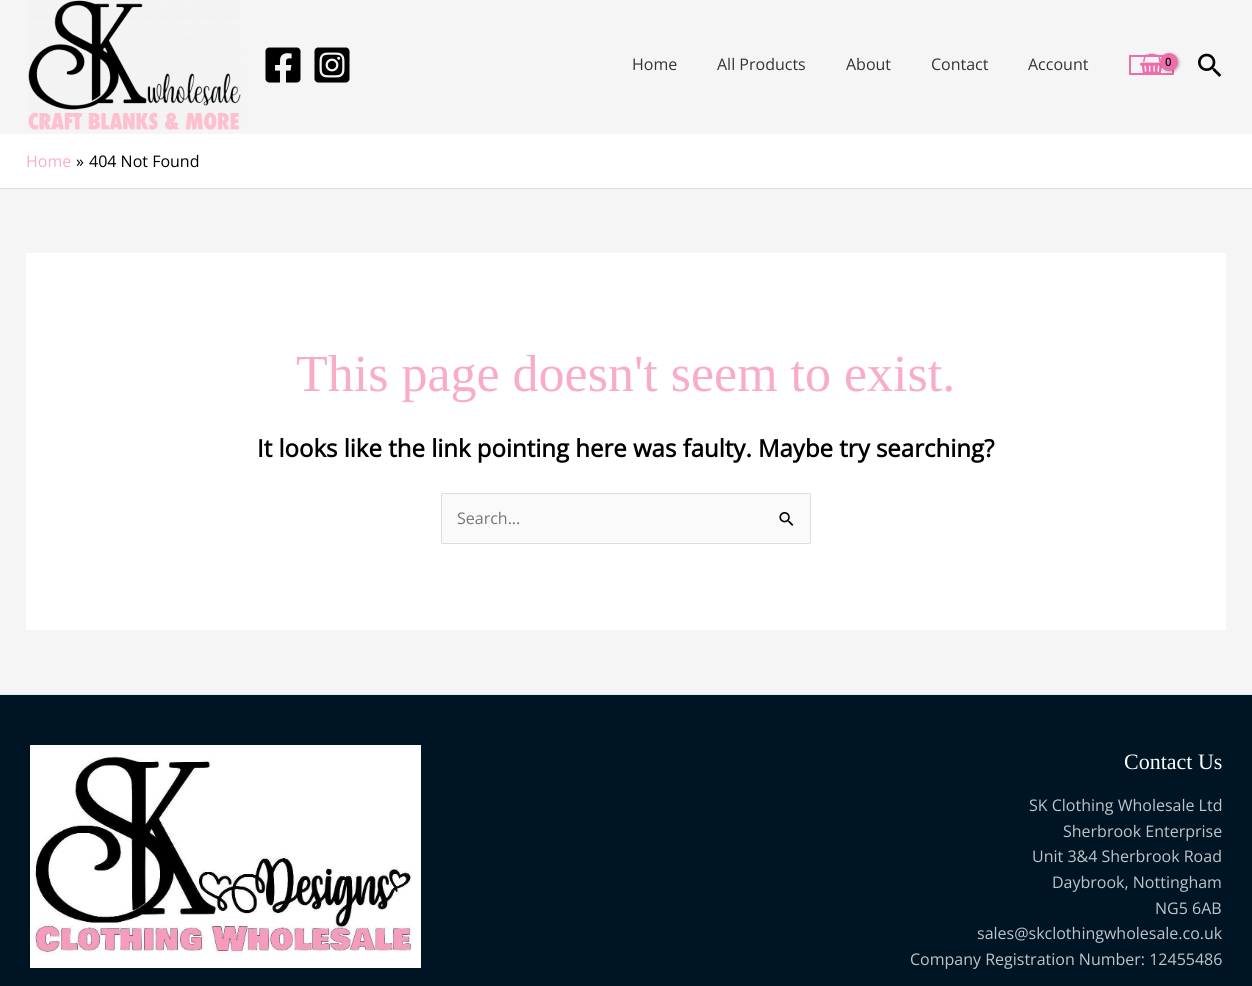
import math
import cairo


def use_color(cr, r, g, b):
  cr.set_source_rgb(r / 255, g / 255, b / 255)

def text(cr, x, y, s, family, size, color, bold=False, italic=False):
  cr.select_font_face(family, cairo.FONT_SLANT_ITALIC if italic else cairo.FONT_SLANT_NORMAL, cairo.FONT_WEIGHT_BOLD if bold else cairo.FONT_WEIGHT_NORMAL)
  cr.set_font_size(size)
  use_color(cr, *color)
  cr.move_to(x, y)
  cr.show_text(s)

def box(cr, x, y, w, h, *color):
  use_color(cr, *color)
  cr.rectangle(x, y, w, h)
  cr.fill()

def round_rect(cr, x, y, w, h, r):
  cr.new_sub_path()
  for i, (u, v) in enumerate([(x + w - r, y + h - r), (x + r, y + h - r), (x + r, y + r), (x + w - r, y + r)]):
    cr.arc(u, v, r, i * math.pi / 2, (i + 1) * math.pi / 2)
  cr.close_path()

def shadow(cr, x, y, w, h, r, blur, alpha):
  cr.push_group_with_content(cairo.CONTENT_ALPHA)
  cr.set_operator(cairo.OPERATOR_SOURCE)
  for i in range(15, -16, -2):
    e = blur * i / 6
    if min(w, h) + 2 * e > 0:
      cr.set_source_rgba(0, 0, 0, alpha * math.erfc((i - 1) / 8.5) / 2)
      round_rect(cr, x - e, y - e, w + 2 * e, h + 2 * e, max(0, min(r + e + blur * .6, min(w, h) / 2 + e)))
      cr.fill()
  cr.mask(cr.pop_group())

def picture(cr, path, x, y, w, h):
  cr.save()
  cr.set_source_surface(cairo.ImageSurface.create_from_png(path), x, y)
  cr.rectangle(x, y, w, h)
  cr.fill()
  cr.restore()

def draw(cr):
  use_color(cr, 245, 245, 245)
  cr.paint()
  picture(cr, "img_01.png", 28, 0, 213, 130)
  picture(cr, "img_02.png", 265, 47, 36, 36)
  picture(cr, "img_03.png", 314, 47, 36, 36)
  cr.rectangle(1130, 56, 43, 18)
  use_color(cr, 238, 110, 171)
  cr.stroke()
  picture(cr, "img_04.png", 1140, 53, 22, 20)
  use_color(cr, 0, 0, 0)
  shadow(cr, 1161, 54, 18, 18, 9, 1.5, 0.3)
  use_color(cr, 238, 110, 171)
  cr.arc(1169, 62, 9, 0, 2 * math.pi)
  cr.fill()
  picture(cr, "img_05.png", 1198, 53, 24, 24)
  box(cr, 0, 134, 1252, 54, 255, 255, 255)
  box(cr, 0, 188, 1252, 1, 221, 221, 221)
  box(cr, 26, 253, 1200, 377, 255, 255, 255)
  use_color(cr, 250, 250, 250)
  round_rect(cr, 441.5, 493.5, 369, 50, 1.5)
  cr.fill_preserve()
  use_color(cr, 221, 221, 221)
  cr.set_line_width(1)
  cr.stroke()
  picture(cr, "img_06.png", 779, 512, 15, 14)
  box(cr, 0, 695, 1252, 291, 0, 21, 36)
  box(cr, 0, 694, 1252, 1, 230, 230, 230)
  picture(cr, "img_07.png", 30, 745, 391, 223)
  text(cr, 632, 70, "Home", "Open Sans", 16, (51, 51, 51))
  text(cr, 717, 70, "All Products", "Open Sans", 16, (51, 51, 51))
  text(cr, 846, 70, "About", "Open Sans", 16, (51, 51, 51))
  text(cr, 931, 70, "Contact", "Open Sans", 16, (51, 51, 51))
  text(cr, 1028, 70, "Account", "Open Sans", 16, (51, 51, 51))
  text(cr, 1165, 66, "0", "Open Sans", 11, (0, 0, 0), bold=True)
  text(cr, 26, 167, "Home", "Open Sans", 16, (249, 172, 201))
  text(cr, 76, 167, "»", "Open Sans", 16, (0, 0, 0))
  text(cr, 89, 167, "404 Not Found", "Open Sans", 16, (0, 0, 0))
  text(cr, 296, 391, "This page doesn't seem to exist.", "Liberation Serif", 52, (249, 172, 201))
  text(cr, 257, 457, "It looks like the link pointing here was faulty. Maybe try searching?", "Open Sans", 24, (0, 0, 0), bold=True)
  text(cr, 457, 524, "Search...", "Open Sans", 16, (117, 117, 117))
  text(cr, 1124, 769, "Contact Us", "Liberation Serif", 22, (255, 255, 255))
  text(cr, 1029, 811, "SK Clothing Wholesale Ltd", "Open Sans", 16, (191, 197, 200))
  text(cr, 1063, 837, "Sherbrook Enterprise", "Open Sans", 16, (191, 197, 200))
  text(cr, 1032, 862, "Unit 3&4 Sherbrook Road", "Open Sans", 16, (191, 197, 200))
  text(cr, 1052, 888, "Daybrook, Nottingham", "Open Sans", 16, (191, 197, 200))
  text(cr, 1155, 914, "NG5 6AB", "Open Sans", 16, (191, 197, 200))
  text(cr, 977, 939, "sales@skclothingwholesale.co.uk", "Open Sans", 16, (191, 197, 200))
  text(cr, 910, 965, "Company Registration Number: 12455486", "Open Sans", 16, (191, 197, 200))


surface = cairo.ImageSurface(cairo.FORMAT_RGB24, 1252, 986)
cr = cairo.Context(surface)
options = cairo.FontOptions()
options.set_hint_metrics(cairo.HINT_METRICS_OFF)
options.set_hint_style(cairo.HINT_STYLE_NONE)
cr.set_font_options(options)
cr.set_miter_limit(4)
draw(cr)
surface.write_to_png("out.png")
